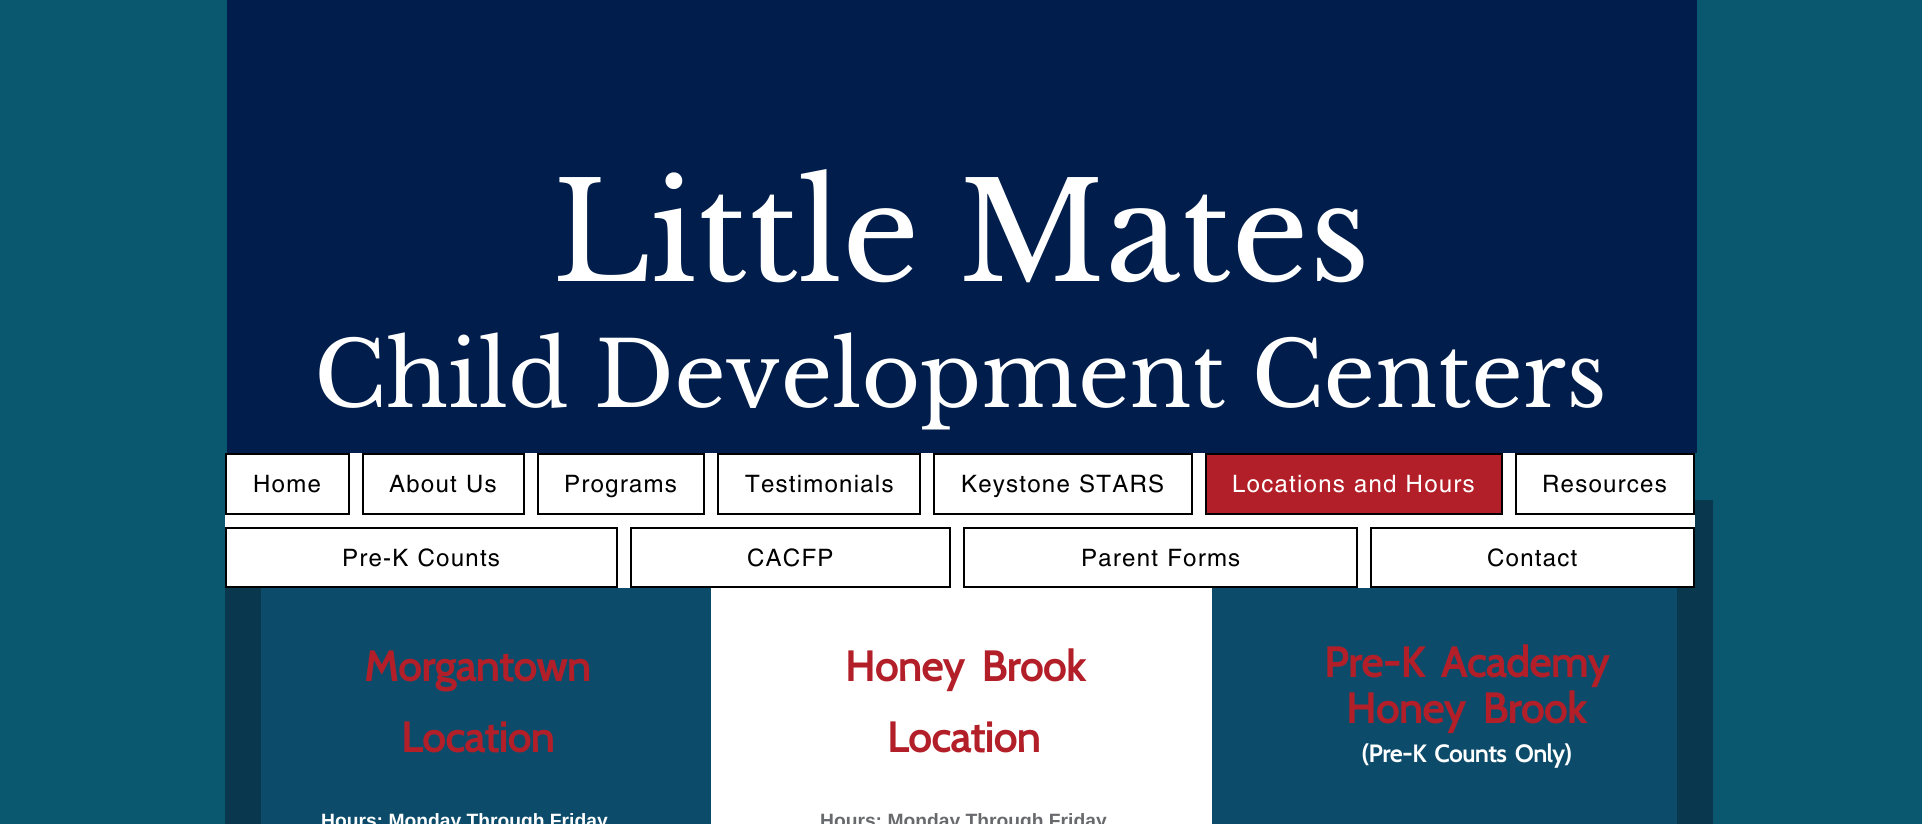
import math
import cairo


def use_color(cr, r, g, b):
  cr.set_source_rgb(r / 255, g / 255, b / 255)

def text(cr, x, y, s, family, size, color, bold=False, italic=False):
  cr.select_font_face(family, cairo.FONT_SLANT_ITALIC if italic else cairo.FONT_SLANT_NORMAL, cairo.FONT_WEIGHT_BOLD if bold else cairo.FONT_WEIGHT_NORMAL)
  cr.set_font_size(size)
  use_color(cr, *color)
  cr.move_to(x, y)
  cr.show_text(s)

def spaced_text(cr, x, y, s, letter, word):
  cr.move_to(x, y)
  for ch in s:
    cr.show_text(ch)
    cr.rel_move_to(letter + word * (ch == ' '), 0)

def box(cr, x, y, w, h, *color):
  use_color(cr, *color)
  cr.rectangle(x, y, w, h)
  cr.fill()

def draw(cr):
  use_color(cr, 9, 88, 112)
  cr.paint()
  box(cr, 227, 0, 1470, 453, 0, 29, 75)
  box(cr, 261, 588, 1416, 236, 12, 75, 106)
  cr.rectangle(243, 518, 1452, 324)
  use_color(cr, 9, 56, 78)
  cr.set_line_width(36)
  cr.stroke()
  box(cr, 225, 453, 1470, 135, 255, 255, 255)
  cr.rectangle(226, 454, 123, 60)
  use_color(cr, 0, 0, 0)
  cr.set_line_width(2)
  cr.stroke()
  cr.rectangle(363, 454, 161, 60)
  cr.stroke()
  cr.rectangle(538, 454, 166, 60)
  cr.stroke()
  cr.rectangle(718, 454, 202, 60)
  cr.stroke()
  cr.rectangle(934, 454, 258, 60)
  cr.stroke()
  use_color(cr, 179, 31, 40)
  cr.rectangle(1206, 454, 296, 60)
  cr.fill_preserve()
  use_color(cr, 0, 0, 0)
  cr.stroke()
  cr.rectangle(1516, 454, 178, 60)
  cr.stroke()
  cr.rectangle(226, 528, 391, 59)
  cr.stroke()
  cr.rectangle(631, 528, 319, 59)
  cr.stroke()
  cr.rectangle(964, 528, 393, 59)
  cr.stroke()
  cr.rectangle(1371, 528, 323, 59)
  cr.stroke()
  box(cr, 711, 588, 501, 236, 255, 255, 255)
  text(cr, 552, 281, "Little Mates", "Libre Baskerville", 135, (255, 255, 255))
  text(cr, 314, 407, "Child Development Centers", "Libre Baskerville", 90, (255, 255, 255))
  cr.select_font_face("helvetica")
  cr.set_font_size(24)
  use_color(cr, 0, 0, 0)
  spaced_text(cr, 253, 492, "Home", 1.25, 0)
  spaced_text(cr, 389, 492, "About Us", 1.25, 0)
  spaced_text(cr, 564, 492, "Programs", 1.25, 0)
  spaced_text(cr, 745, 492, "Testimonials", 1.25, 0)
  spaced_text(cr, 961, 492, "Keystone STARS", 1.25, 0)
  use_color(cr, 255, 255, 255)
  spaced_text(cr, 1232, 492, "Locations and Hours", 1.25, 0)
  use_color(cr, 0, 0, 0)
  spaced_text(cr, 1542, 492, "Resources", 1.25, 0)
  spaced_text(cr, 342, 566, "Pre-K Counts", 1.25, 0)
  spaced_text(cr, 747, 566, "CACFP", 1.25, 0)
  spaced_text(cr, 1081, 566, "Parent Forms", 1.25, 0)
  spaced_text(cr, 1487, 566, "Contact", 1.25, 0)
  text(cr, 364, 681, "Morgantown", "Cabin", 42, (179, 31, 40), bold=True)
  text(cr, 401, 752, "Location", "Cabin", 42, (179, 31, 40), bold=True)
  text(cr, 321, 827, "Hours: Monday Through Friday", "Liberation Sans", 19.25, (255, 255, 255), bold=True)
  cr.select_font_face("Cabin", cairo.FONT_SLANT_NORMAL, cairo.FONT_WEIGHT_BOLD)
  cr.set_font_size(42)
  use_color(cr, 179, 31, 40)
  spaced_text(cr, 845, 681, "Honey Brook", 0, 8)
  text(cr, 887, 752, "Location", "Cabin", 42, (179, 31, 40), bold=True)
  text(cr, 820, 827, "Hours: Monday Through Friday", "Liberation Sans", 19.25, (103, 105, 108), bold=True)
  cr.select_font_face("Cabin", cairo.FONT_SLANT_NORMAL, cairo.FONT_WEIGHT_BOLD)
  cr.set_font_size(42)
  use_color(cr, 179, 31, 40)
  spaced_text(cr, 1324, 677, "Pre-K Academy", 0, 7)
  spaced_text(cr, 1346, 723, "Honey Brook", 0, 8)
  cr.set_font_size(24)
  use_color(cr, 255, 255, 255)
  spaced_text(cr, 1361, 762, "(Pre-K Counts Only)", 0, 3)


surface = cairo.ImageSurface(cairo.FORMAT_RGB24, 1922, 824)
cr = cairo.Context(surface)
options = cairo.FontOptions()
options.set_hint_metrics(cairo.HINT_METRICS_OFF)
options.set_hint_style(cairo.HINT_STYLE_NONE)
cr.set_font_options(options)
cr.set_miter_limit(4)
draw(cr)
surface.write_to_png("out.png")
